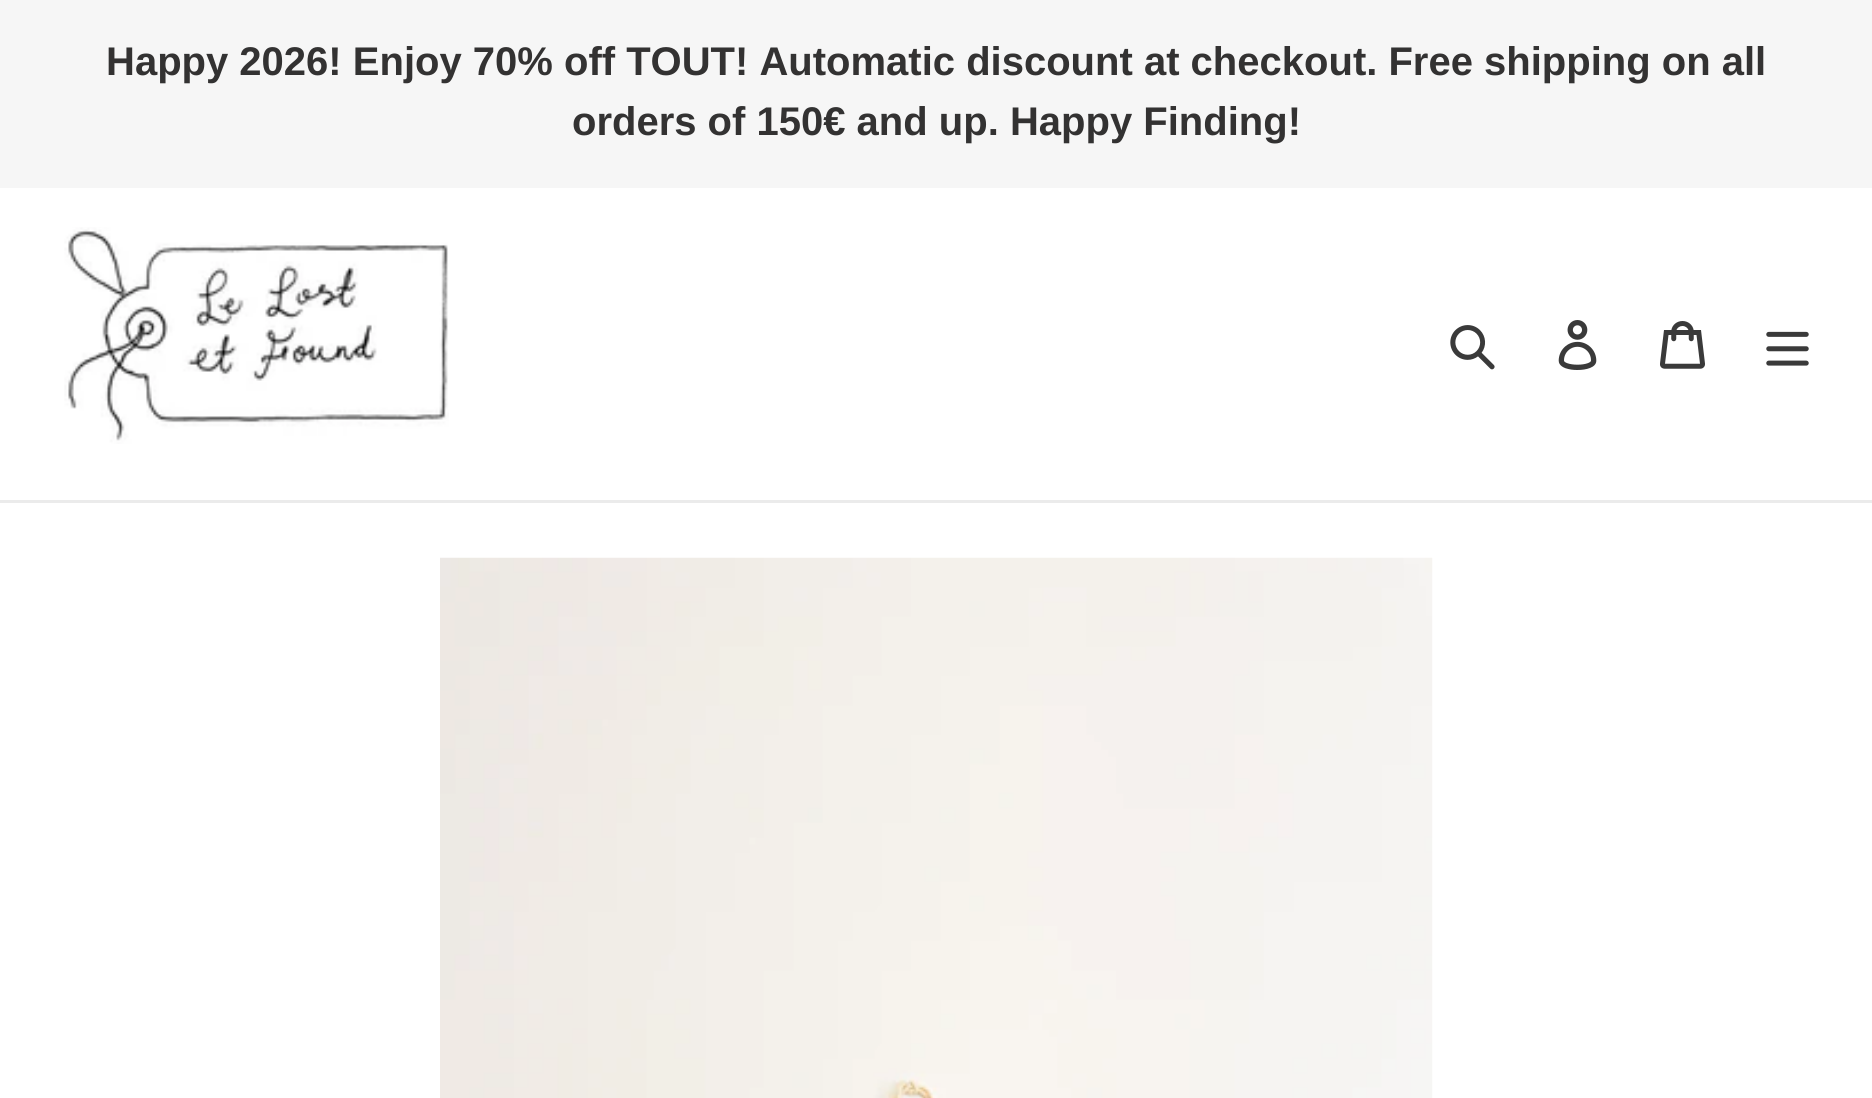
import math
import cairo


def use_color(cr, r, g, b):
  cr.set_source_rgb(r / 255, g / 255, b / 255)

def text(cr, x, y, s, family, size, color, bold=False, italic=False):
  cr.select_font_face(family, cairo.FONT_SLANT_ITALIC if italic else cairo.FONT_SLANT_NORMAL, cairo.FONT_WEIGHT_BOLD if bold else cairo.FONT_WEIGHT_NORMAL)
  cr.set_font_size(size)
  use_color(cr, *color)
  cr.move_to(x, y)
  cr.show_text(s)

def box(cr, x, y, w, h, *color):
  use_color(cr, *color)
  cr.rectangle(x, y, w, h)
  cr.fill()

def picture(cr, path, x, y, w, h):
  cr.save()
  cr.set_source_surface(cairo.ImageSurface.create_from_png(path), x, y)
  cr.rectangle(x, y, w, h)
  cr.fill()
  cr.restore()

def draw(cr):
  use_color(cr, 255, 255, 255)
  cr.paint()
  box(cr, 0, 0, 1872, 188, 246, 246, 246)
  box(cr, 0, 500, 1872, 3, 235, 235, 235)
  picture(cr, "img_01.png", 64, 227, 385, 217)
  picture(cr, "img_02.png", 1450, 325, 45, 45)
  picture(cr, "img_03.png", 1558, 320, 39, 50)
  picture(cr, "img_04.png", 1660, 321, 45, 48)
  picture(cr, "img_05.png", 1766, 331, 43, 35)
  picture(cr, "img_06.png", 440, 557, 993, 541)
  text(cr, 106, 75, "Happy 2026! Enjoy 70% off TOUT! Automatic discount at checkout. Free shipping on all", "Liberation Sans", 40, (51, 50, 50), bold=True)
  text(cr, 572, 135, "orders of 150€ and up. Happy Finding!", "Liberation Sans", 40, (51, 50, 50), bold=True)


surface = cairo.ImageSurface(cairo.FORMAT_RGB24, 1872, 1098)
cr = cairo.Context(surface)
options = cairo.FontOptions()
options.set_hint_metrics(cairo.HINT_METRICS_OFF)
options.set_hint_style(cairo.HINT_STYLE_NONE)
cr.set_font_options(options)
cr.set_miter_limit(4)
draw(cr)
surface.write_to_png("out.png")
